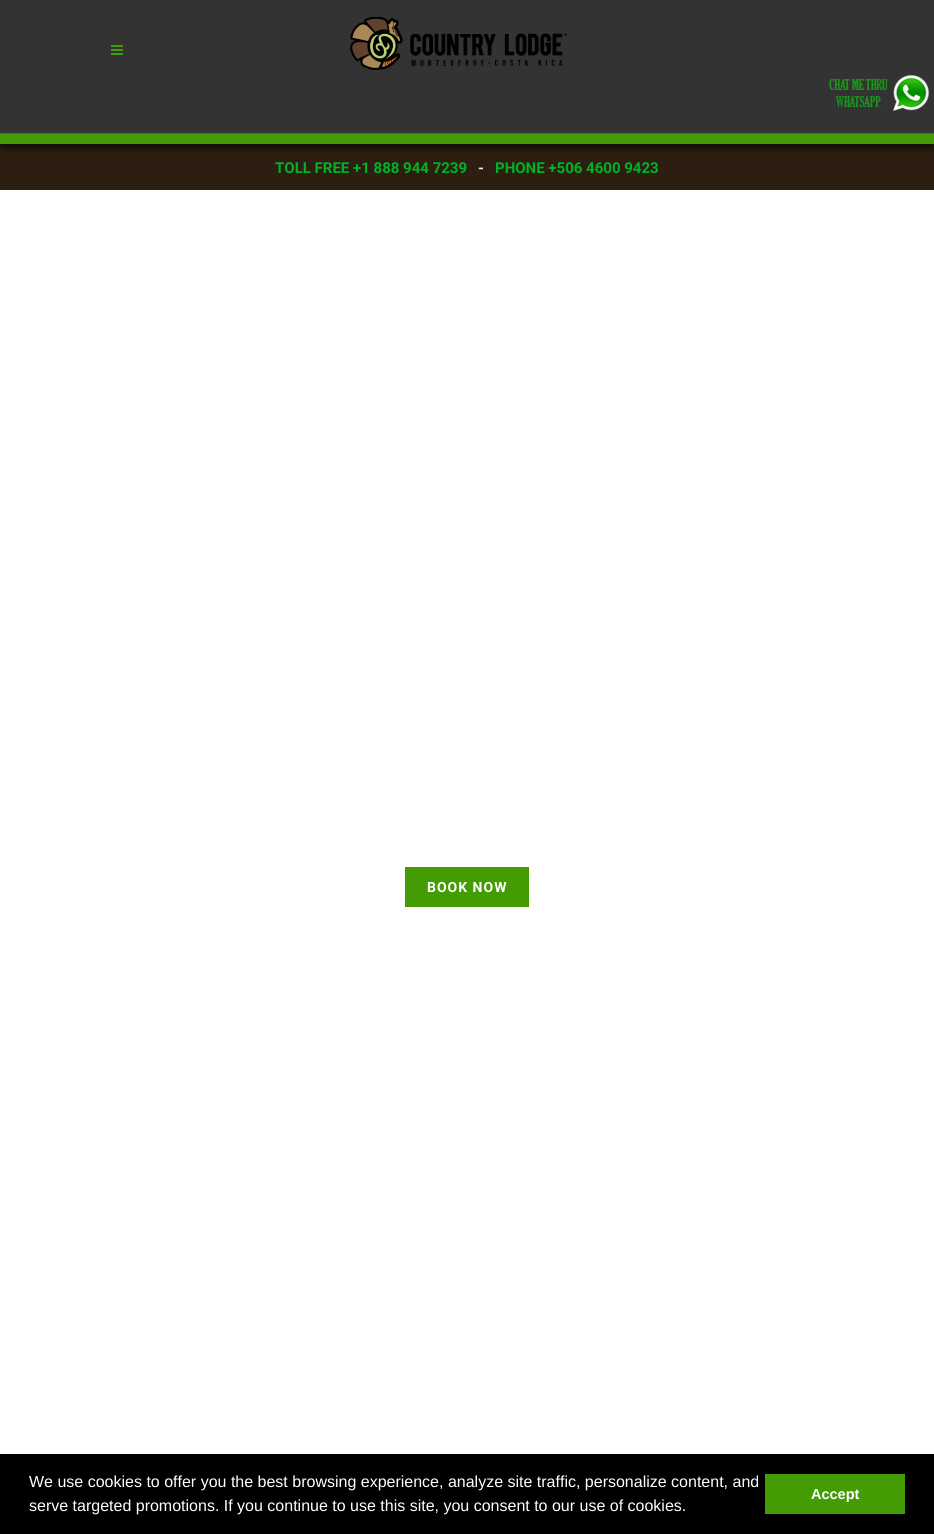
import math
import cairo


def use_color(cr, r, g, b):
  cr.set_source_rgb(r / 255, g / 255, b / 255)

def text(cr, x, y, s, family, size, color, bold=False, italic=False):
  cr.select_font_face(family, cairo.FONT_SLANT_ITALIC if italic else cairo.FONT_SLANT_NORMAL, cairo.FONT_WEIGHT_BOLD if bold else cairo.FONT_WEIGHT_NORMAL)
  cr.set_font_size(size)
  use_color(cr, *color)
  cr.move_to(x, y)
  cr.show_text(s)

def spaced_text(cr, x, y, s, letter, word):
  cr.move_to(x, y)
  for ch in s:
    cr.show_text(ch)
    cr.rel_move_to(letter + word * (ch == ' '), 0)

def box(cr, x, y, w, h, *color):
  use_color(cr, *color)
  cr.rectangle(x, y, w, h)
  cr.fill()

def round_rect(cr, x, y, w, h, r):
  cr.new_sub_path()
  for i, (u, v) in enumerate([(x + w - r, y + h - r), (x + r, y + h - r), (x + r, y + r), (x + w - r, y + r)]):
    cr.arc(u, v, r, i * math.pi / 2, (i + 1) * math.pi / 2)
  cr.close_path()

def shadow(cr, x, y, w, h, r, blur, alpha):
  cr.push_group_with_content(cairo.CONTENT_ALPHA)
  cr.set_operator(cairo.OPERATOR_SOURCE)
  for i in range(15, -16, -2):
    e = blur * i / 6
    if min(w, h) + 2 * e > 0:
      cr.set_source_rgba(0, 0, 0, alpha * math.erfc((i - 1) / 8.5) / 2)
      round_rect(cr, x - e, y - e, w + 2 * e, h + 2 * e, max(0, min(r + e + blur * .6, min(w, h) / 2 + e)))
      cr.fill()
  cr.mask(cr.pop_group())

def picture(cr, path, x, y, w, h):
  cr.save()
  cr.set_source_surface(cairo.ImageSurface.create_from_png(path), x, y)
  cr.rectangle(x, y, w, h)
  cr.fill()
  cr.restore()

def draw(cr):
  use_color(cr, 255, 255, 255)
  cr.paint()
  box(cr, 0, 0, 934, 133, 51, 51, 51)
  box(cr, 0, 144, 934, 46, 44, 31, 17)
  use_color(cr, 0, 0, 0)
  shadow(cr, 0, 139, 934, 10, 0, 2.5, 0.5)
  box(cr, 0, 133, 934, 1, 92, 92, 92)
  picture(cr, "img_01.png", 111, 45, 12, 10)
  picture(cr, "img_02.png", 350, 16, 218, 55)
  picture(cr, "img_03.png", 829, 75, 100, 36)
  box(cr, 0, 134, 934, 10, 68, 156, 4)
  box(cr, 405, 867, 124, 40, 68, 156, 4)
  box(cr, 0, 1454, 934, 80, 0, 0, 0)
  box(cr, 765, 1474, 140, 40, 68, 156, 4)
  text(cr, 275, 173, "TOLL FREE +1 888 944 7239", "Roboto", 15, (0, 179, 37), bold=True)
  text(cr, 478, 173, "-", "Roboto", 15, (238, 238, 238), bold=True)
  text(cr, 495, 173, "PHONE +506 4600 9423", "Roboto", 15, (0, 179, 37), bold=True)
  cr.set_font_size(14)
  use_color(cr, 255, 255, 255)
  spaced_text(cr, 427, 892, "BOOK NOW", 1, 0)
  text(cr, 29, 1487, "We use cookies to offer you the best browsing experience, analyze site traffic, personalize content, and", "Liberation Sans", 16, (255, 255, 255))
  text(cr, 29, 1511, "serve targeted promotions. If you continue to use this site, you consent to our use of cookies.", "Liberation Sans", 16, (255, 255, 255))
  text(cr, 811, 1499, "Accept", "Liberation Sans", 14.5, (255, 255, 255), bold=True)


surface = cairo.ImageSurface(cairo.FORMAT_RGB24, 934, 1534)
cr = cairo.Context(surface)
options = cairo.FontOptions()
options.set_hint_metrics(cairo.HINT_METRICS_OFF)
options.set_hint_style(cairo.HINT_STYLE_NONE)
cr.set_font_options(options)
cr.set_miter_limit(4)
draw(cr)
surface.write_to_png("out.png")
